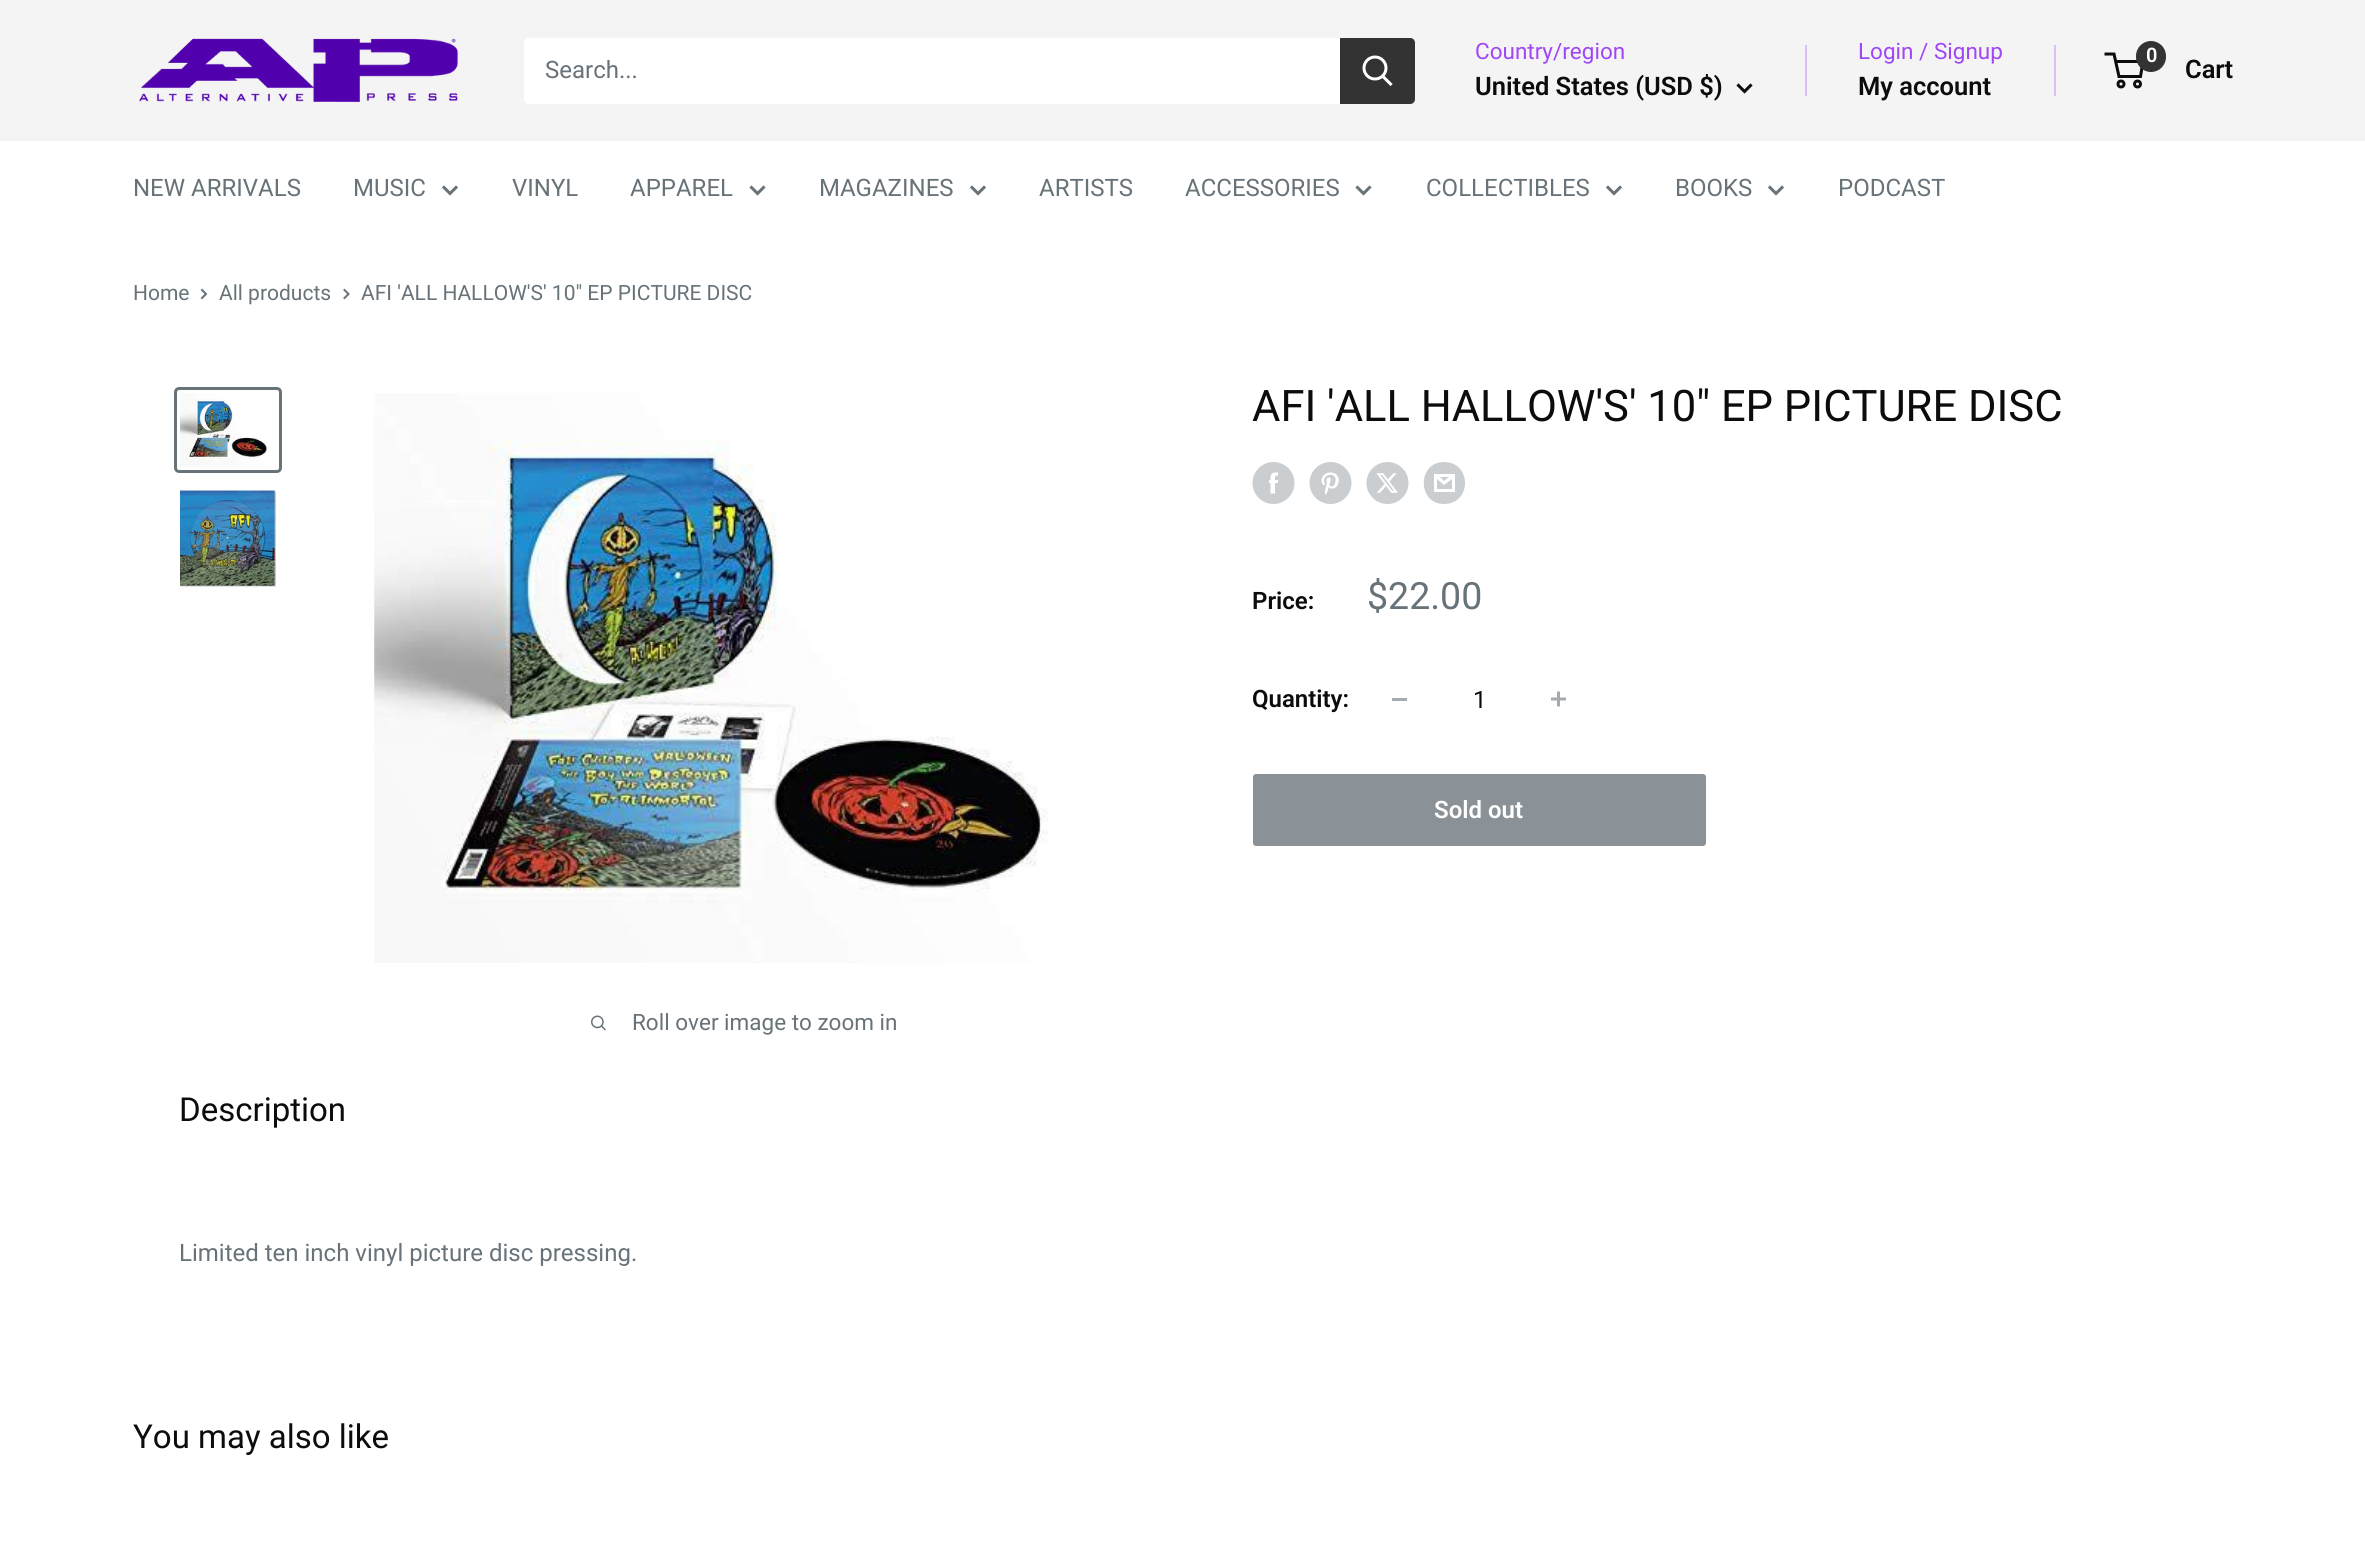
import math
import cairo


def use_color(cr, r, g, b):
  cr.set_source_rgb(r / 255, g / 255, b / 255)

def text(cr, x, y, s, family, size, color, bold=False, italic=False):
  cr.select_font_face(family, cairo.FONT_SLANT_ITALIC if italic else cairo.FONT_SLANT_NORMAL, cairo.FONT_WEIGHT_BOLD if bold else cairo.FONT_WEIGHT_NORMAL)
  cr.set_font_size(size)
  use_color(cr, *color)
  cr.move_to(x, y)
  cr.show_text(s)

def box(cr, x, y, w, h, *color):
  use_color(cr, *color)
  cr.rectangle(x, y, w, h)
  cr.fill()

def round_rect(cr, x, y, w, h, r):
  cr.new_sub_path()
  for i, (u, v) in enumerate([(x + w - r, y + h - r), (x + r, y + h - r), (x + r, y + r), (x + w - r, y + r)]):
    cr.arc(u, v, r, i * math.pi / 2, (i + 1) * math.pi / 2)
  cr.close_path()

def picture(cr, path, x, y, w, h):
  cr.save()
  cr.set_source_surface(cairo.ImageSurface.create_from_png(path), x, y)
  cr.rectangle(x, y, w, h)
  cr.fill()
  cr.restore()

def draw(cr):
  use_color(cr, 255, 255, 255)
  cr.paint()
  box(cr, 0, 0, 2365, 141, 244, 244, 244)
  picture(cr, "img_01.png", 139, 38, 320, 64)
  use_color(cr, 255, 255, 255)
  round_rect(cr, 524, 38, 891, 66, 5)
  cr.fill()
  use_color(cr, 51, 51, 51)
  cr.new_path()
  cr.move_to(1340, 38)
  cr.line_to(1410, 38)
  cr.curve_to(1413, 38, 1415, 40, 1415, 43)
  cr.line_to(1415, 99)
  cr.curve_to(1415, 102, 1413, 104, 1410, 104)
  cr.line_to(1340, 104)
  cr.close_path()
  cr.fill()
  cr.new_path()
  cr.move_to(1390.5, 84)
  cr.line_to(1383, 76.5)
  use_color(cr, 255, 255, 255)
  cr.set_line_width(3)
  cr.set_line_cap(cairo.LINE_CAP_SQUARE)
  cr.stroke()
  cr.arc(1375, 68, 11, 0, 2 * math.pi)
  cr.set_line_cap(cairo.LINE_CAP_BUTT)
  cr.stroke()
  cr.new_path()
  cr.move_to(1750.5, 85.5)
  cr.line_to(1744.5, 91.5)
  cr.line_to(1738.5, 85.5)
  use_color(cr, 12, 12, 13)
  cr.set_line_cap(cairo.LINE_CAP_SQUARE)
  cr.stroke()
  box(cr, 1805, 45, 2, 51, 219, 192, 245)
  box(cr, 2054, 45, 2, 51, 219, 192, 245)
  cr.arc(2121, 84, 3, 0, 2 * math.pi)
  use_color(cr, 12, 12, 13)
  cr.set_line_cap(cairo.LINE_CAP_BUTT)
  cr.stroke()
  cr.arc(2137.5, 84, 3, 0, 2 * math.pi)
  cr.stroke()
  cr.new_path()
  cr.move_to(2115.5, 61.5)
  cr.line_to(2143, 61.5)
  cr.line_to(2140.5, 76.5)
  cr.line_to(2119, 76.5)
  cr.line_to(2114, 54)
  cr.line_to(2104.5, 54)
  cr.stroke()
  use_color(cr, 51, 51, 51)
  round_rect(cr, 2136, 41, 30, 31, 15)
  cr.fill()
  cr.new_path()
  cr.move_to(456, 187.5)
  cr.line_to(450, 193.5)
  cr.line_to(444, 187.5)
  use_color(cr, 103, 114, 121)
  cr.set_line_cap(cairo.LINE_CAP_SQUARE)
  cr.stroke()
  cr.new_path()
  cr.move_to(763.5, 187.5)
  cr.line_to(757.5, 193.5)
  cr.line_to(751.5, 187.5)
  cr.stroke()
  cr.new_path()
  cr.move_to(984, 187.5)
  cr.line_to(978, 193.5)
  cr.line_to(972, 187.5)
  cr.stroke()
  cr.new_path()
  cr.move_to(1369.5, 187.5)
  cr.line_to(1363.5, 193.5)
  cr.line_to(1357.5, 187.5)
  cr.stroke()
  cr.new_path()
  cr.move_to(1620, 187.5)
  cr.line_to(1614, 193.5)
  cr.line_to(1608, 187.5)
  cr.stroke()
  cr.new_path()
  cr.move_to(1782, 187.5)
  cr.line_to(1776, 193.5)
  cr.line_to(1770, 187.5)
  cr.stroke()
  cr.new_path()
  cr.move_to(202, 290)
  cr.line_to(206, 294)
  cr.line_to(202, 298)
  cr.set_line_width(2)
  cr.stroke()
  cr.new_path()
  cr.move_to(344.5, 290)
  cr.line_to(348.5, 294)
  cr.line_to(344.5, 298)
  cr.stroke()
  picture(cr, "img_02.png", 1252, 462, 43, 42)
  picture(cr, "img_03.png", 1309, 462, 43, 42)
  picture(cr, "img_04.png", 1366, 462, 43, 42)
  use_color(cr, 202, 206, 208)
  cr.new_path()
  cr.move_to(1444, 504)
  cr.curve_to(1417, 504, 1417, 462, 1444, 462)
  cr.curve_to(1472, 462, 1472, 504, 1444, 504)
  cr.close_path()
  cr.move_to(1440, 477)
  cr.line_to(1449, 477)
  cr.line_to(1444, 481)
  cr.close_path()
  cr.move_to(1452, 479)
  cr.line_to(1452, 489)
  cr.line_to(1437, 489)
  cr.line_to(1437, 479)
  cr.line_to(1444, 485)
  cr.close_path()
  cr.move_to(1455, 474)
  cr.line_to(1434, 474)
  cr.line_to(1434, 492)
  cr.line_to(1455, 492)
  cr.close_path()
  cr.fill()
  box(cr, 1392, 698, 15, 3, 164, 170, 175)
  picture(cr, "img_05.png", 1551, 691, 15, 16)
  use_color(cr, 138, 146, 151)
  round_rect(cr, 1254, 775, 451, 70, 2)
  cr.fill_preserve()
  cr.set_line_cap(cairo.LINE_CAP_BUTT)
  cr.stroke()
  round_rect(cr, 175.5, 388.5, 105, 83, 3.5)
  use_color(cr, 103, 114, 121)
  cr.set_line_width(3)
  cr.stroke()
  picture(cr, "img_06.png", 180, 393, 88, 74)
  picture(cr, "img_07.png", 180, 490, 96, 97)
  picture(cr, "img_08.png", 374, 393, 675, 570)
  picture(cr, "img_09.png", 591, 1015, 15, 16)
  text(cr, 545, 78, "Search...", "Roboto", 24, (103, 114, 121))
  text(cr, 1475, 59, "Country/region", "Roboto", 22.5, (161, 70, 246))
  text(cr, 1475, 95, "United States (USD $)", "Roboto SemiBold", 25.5, (12, 12, 13))
  text(cr, 1858, 59, "Login / Signup", "Roboto", 22.5, (161, 70, 246))
  text(cr, 1858, 95, "My account", "Roboto SemiBold", 25.5, (12, 12, 13))
  text(cr, 2146, 62, "0", "Roboto SemiBold", 20, (255, 255, 255))
  text(cr, 2185, 78, "Cart", "Roboto SemiBold", 25.5, (12, 12, 13))
  text(cr, 133, 196, "NEW ARRIVALS", "Roboto", 24, (103, 114, 121))
  text(cr, 353, 196, "MUSIC", "Roboto", 24, (103, 114, 121))
  text(cr, 512, 196, "VINYL", "Roboto", 24, (103, 114, 121))
  text(cr, 630, 196, "APPAREL", "Roboto", 24, (103, 114, 121))
  text(cr, 819, 196, "MAGAZINES", "Roboto", 24, (103, 114, 121))
  text(cr, 1039, 196, "ARTISTS", "Roboto", 24, (103, 114, 121))
  text(cr, 1185, 196, "ACCESSORIES", "Roboto", 24, (103, 114, 121))
  text(cr, 1426, 196, "COLLECTIBLES", "Roboto", 24, (103, 114, 121))
  text(cr, 1675, 196, "BOOKS", "Roboto", 24, (103, 114, 121))
  text(cr, 1838, 196, "PODCAST", "Roboto", 24, (103, 114, 121))
  text(cr, 133, 300, "Home", "Roboto", 21, (103, 114, 121))
  text(cr, 219, 300, "All products", "Roboto", 21, (103, 114, 121))
  text(cr, 361, 300, "AFI 'ALL HALLOW'S' 10\" EP PICTURE DISC", "Roboto", 21, (103, 114, 121))
  text(cr, 1252, 421, "AFI 'ALL HALLOW'S' 10\" EP PICTURE DISC", "Roboto", 43.5, (12, 12, 13))
  text(cr, 1252, 609, "Price:", "Roboto SemiBold", 24, (12, 12, 13))
  text(cr, 1367, 609, "$22.00", "Roboto", 37.5, (103, 114, 121))
  text(cr, 1252, 707, "Quantity:", "Roboto SemiBold", 24, (12, 12, 13))
  text(cr, 1473, 708, "1", "Roboto", 24, (12, 12, 13))
  text(cr, 1434, 818, "Sold out", "Roboto SemiBold", 24, (255, 255, 255))
  text(cr, 632, 1030, "Roll over image to zoom in", "Roboto", 22.5, (103, 114, 121))
  text(cr, 179, 1121, "Description", "Roboto", 33, (12, 12, 13))
  text(cr, 179, 1261, "Limited ten inch vinyl picture disc pressing.", "Roboto", 24, (103, 114, 121))
  text(cr, 133, 1448, "You may also like", "Roboto", 33, (12, 12, 13))


surface = cairo.ImageSurface(cairo.FORMAT_RGB24, 2365, 1546)
cr = cairo.Context(surface)
options = cairo.FontOptions()
options.set_hint_metrics(cairo.HINT_METRICS_OFF)
options.set_hint_style(cairo.HINT_STYLE_NONE)
cr.set_font_options(options)
cr.set_miter_limit(4)
draw(cr)
surface.write_to_png("out.png")
